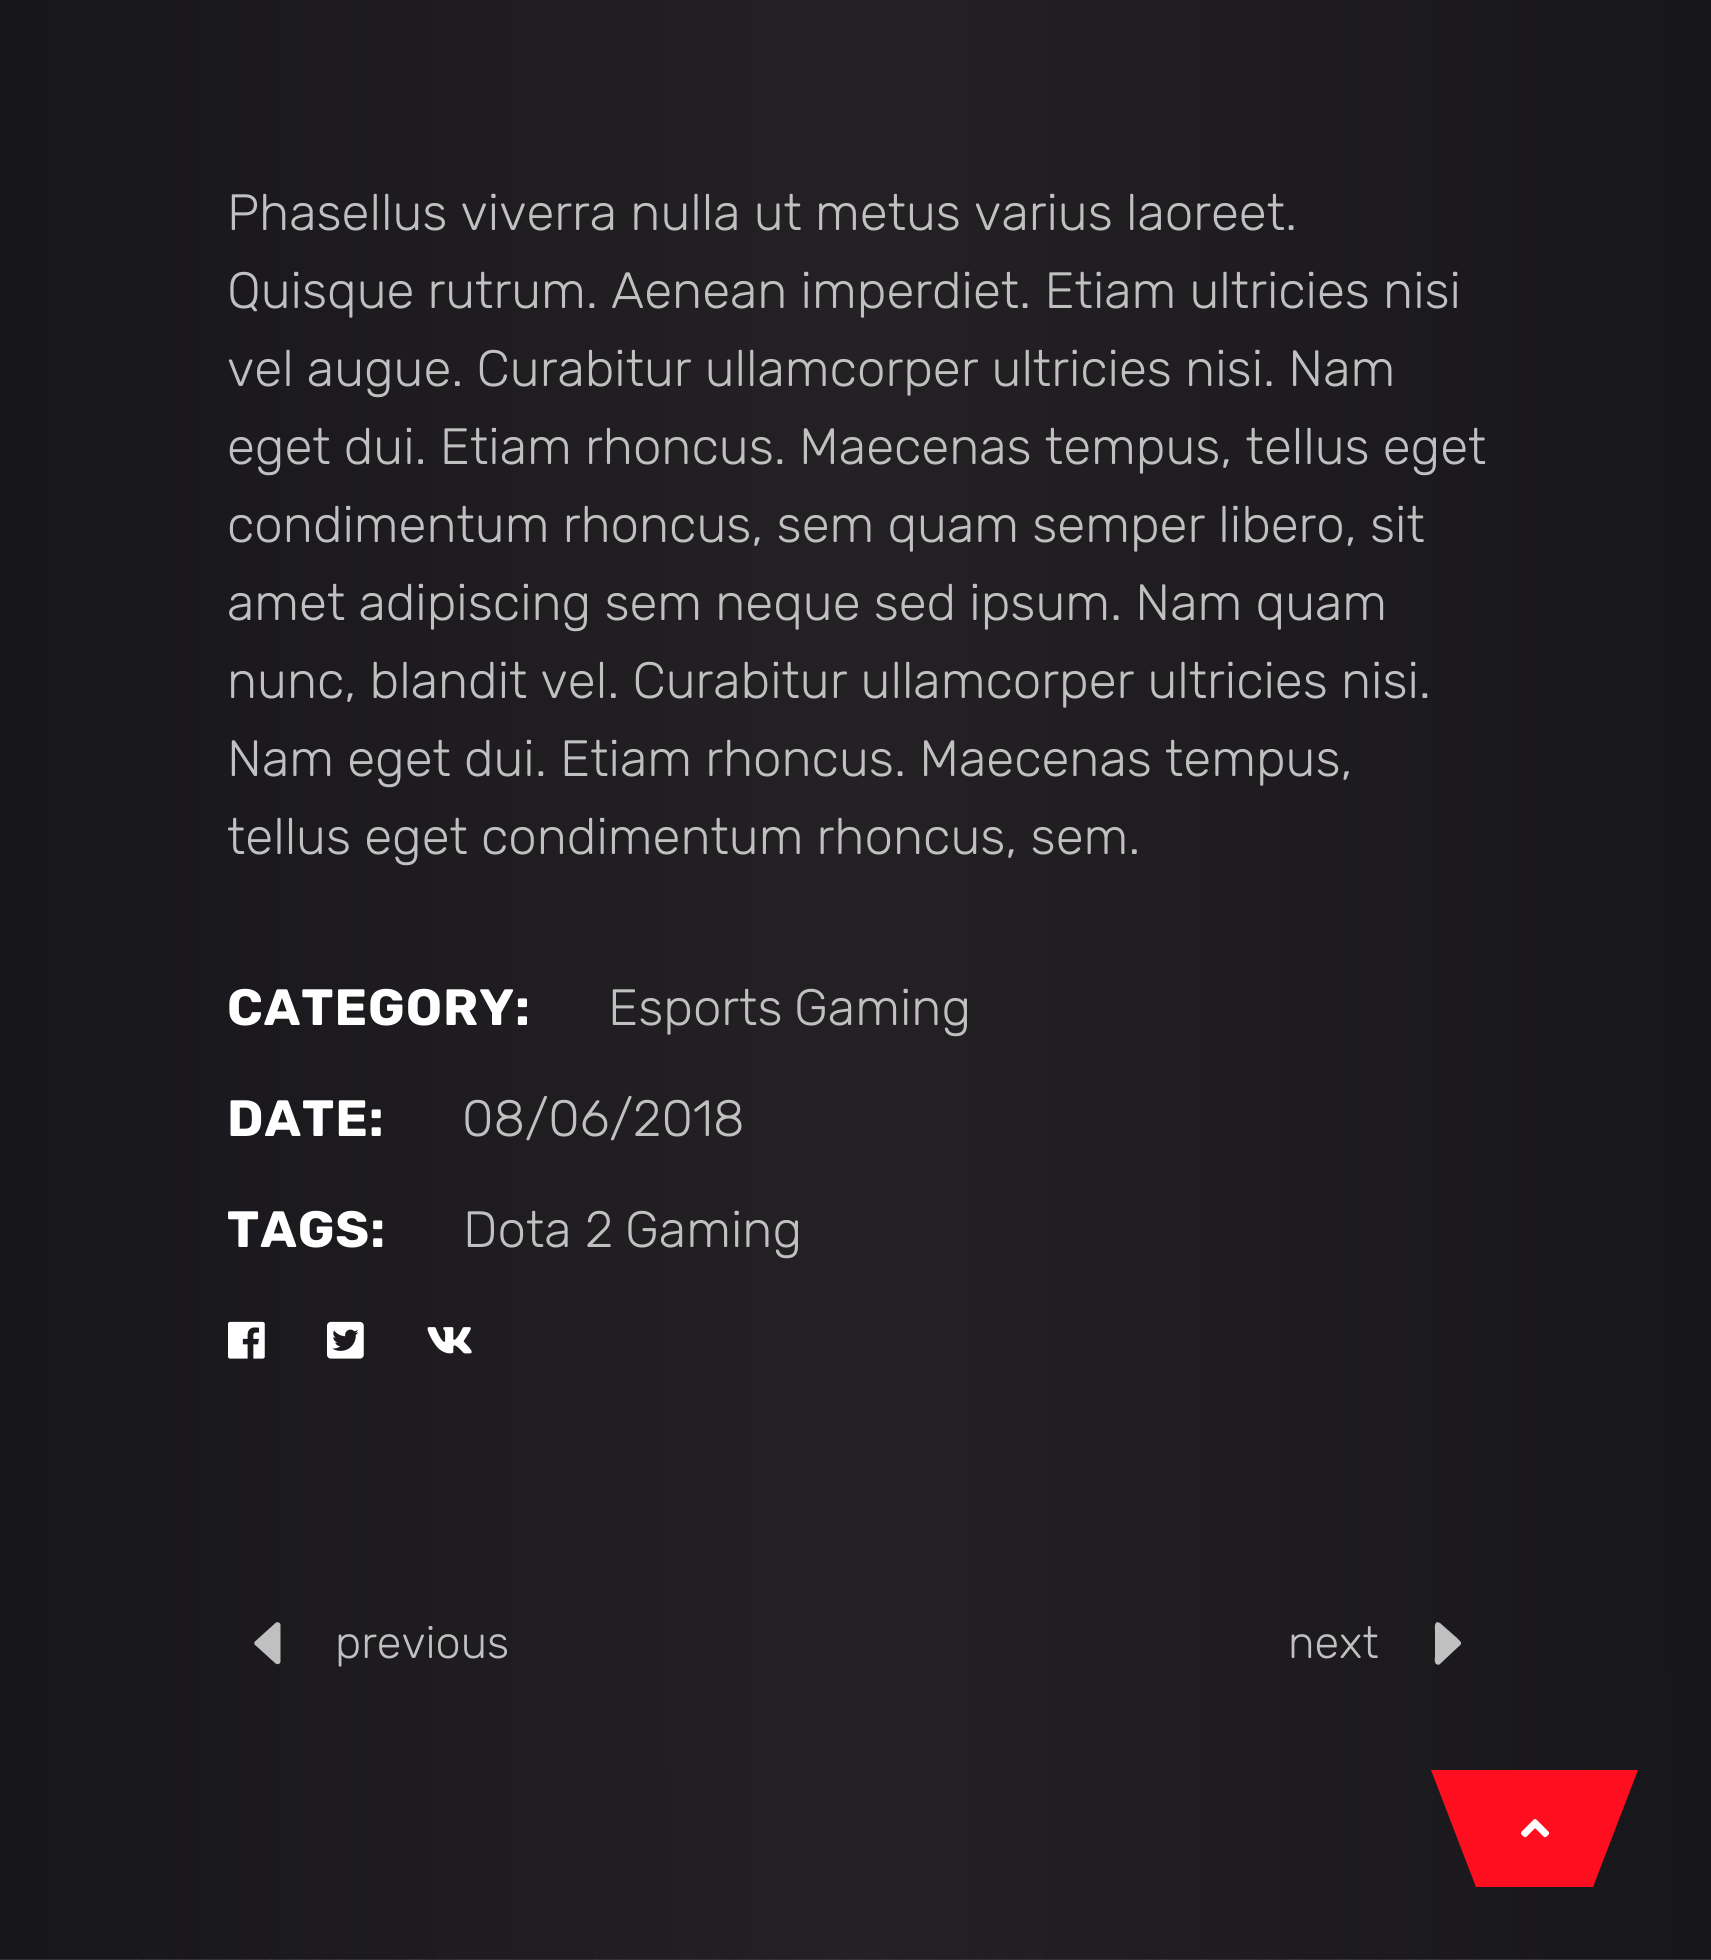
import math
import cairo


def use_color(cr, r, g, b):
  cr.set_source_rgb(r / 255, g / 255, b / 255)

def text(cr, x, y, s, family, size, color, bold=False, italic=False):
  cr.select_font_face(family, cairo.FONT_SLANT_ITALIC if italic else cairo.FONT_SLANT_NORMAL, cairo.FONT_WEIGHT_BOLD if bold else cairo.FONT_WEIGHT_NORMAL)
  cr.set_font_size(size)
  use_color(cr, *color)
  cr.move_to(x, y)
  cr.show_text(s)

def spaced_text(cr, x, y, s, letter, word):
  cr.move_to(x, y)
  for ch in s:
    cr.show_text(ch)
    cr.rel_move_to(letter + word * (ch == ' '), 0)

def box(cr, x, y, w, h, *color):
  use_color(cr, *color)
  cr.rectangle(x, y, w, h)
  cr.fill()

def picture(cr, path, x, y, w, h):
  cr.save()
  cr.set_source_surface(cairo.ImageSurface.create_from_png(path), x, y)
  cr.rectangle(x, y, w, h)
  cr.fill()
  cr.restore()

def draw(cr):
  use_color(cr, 255, 255, 255)
  cr.paint()
  gradient = cairo.LinearGradient(0, -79, 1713, -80)
  gradient.add_color_stop_rgba(0, 0.09, 0.086, 0.102, 1)
  gradient.add_color_stop_rgba(0.5, 0.141, 0.129, 0.141, 1)
  gradient.add_color_stop_rgba(1, 0.09, 0.086, 0.102, 1)
  cr.set_source(gradient)
  cr.rectangle(0, 0, 1711, 1959)
  cr.fill()
  picture(cr, "img_01.png", 228, 1321, 37, 38)
  picture(cr, "img_02.png", 327, 1321, 37, 38)
  picture(cr, "img_03.png", 427, 1327, 45, 27)
  picture(cr, "img_04.png", 254, 1622, 27, 43)
  use_color(cr, 192, 192, 192)
  cr.new_path()
  cr.move_to(1440, 1664)
  cr.curve_to(1439, 1665, 1438, 1665, 1436, 1664)
  cr.curve_to(1434, 1662, 1435, 1657, 1435, 1656)
  cr.line_to(1435, 1631)
  cr.curve_to(1435, 1629, 1434, 1624, 1437, 1622)
  cr.line_to(1440, 1623)
  cr.line_to(1457, 1638)
  cr.curve_to(1462, 1643, 1463, 1643, 1457, 1648)
  cr.close_path()
  cr.fill()
  box(cr, 1476, 1770, 117, 117, 255, 14, 31)
  cr.new_path()
  cr.move_to(1431, 1770)
  cr.line_to(1476, 1770)
  cr.line_to(1476, 1887)
  cr.close_path()
  cr.fill()
  picture(cr, "img_05.png", 1521, 1819, 29, 19)
  cr.new_path()
  cr.move_to(1593, 1770)
  cr.line_to(1638, 1770)
  cr.line_to(1593, 1887)
  cr.close_path()
  cr.fill()
  picture(cr, "img_06.png", 0, 1959, 1711, 1)
  text(cr, 227, 230, "Phasellus viverra nulla ut metus varius laoreet.", "Rubik Light", 51, (192, 192, 192))
  text(cr, 227, 308, "Quisque rutrum. Aenean imperdiet. Etiam ultricies nisi", "Rubik Light", 51, (192, 192, 192))
  text(cr, 227, 386, "vel augue. Curabitur ullamcorper ultricies nisi. Nam", "Rubik Light", 51, (192, 192, 192))
  text(cr, 227, 464, "eget dui. Etiam rhoncus. Maecenas tempus, tellus eget", "Rubik Light", 51, (192, 192, 192))
  text(cr, 227, 542, "condimentum rhoncus, sem quam semper libero, sit", "Rubik Light", 51, (192, 192, 192))
  text(cr, 227, 620, "amet adipiscing sem neque sed ipsum. Nam quam", "Rubik Light", 51, (192, 192, 192))
  text(cr, 227, 698, "nunc, blandit vel. Curabitur ullamcorper ultricies nisi.", "Rubik Light", 51, (192, 192, 192))
  text(cr, 227, 776, "Nam eget dui. Etiam rhoncus. Maecenas tempus,", "Rubik Light", 51, (192, 192, 192))
  text(cr, 227, 854, "tellus eget condimentum rhoncus, sem.", "Rubik Light", 51, (192, 192, 192))
  cr.select_font_face("Rubik", cairo.FONT_SLANT_NORMAL, cairo.FONT_WEIGHT_BOLD)
  use_color(cr, 255, 255, 255)
  spaced_text(cr, 227, 1025, "CATEGORY:", 1, 0)
  text(cr, 608, 1025, "Esports", "Rubik Light", 51, (192, 192, 192))
  text(cr, 794, 1025, "Gaming", "Rubik Light", 51, (192, 192, 192))
  cr.select_font_face("Rubik", cairo.FONT_SLANT_NORMAL, cairo.FONT_WEIGHT_BOLD)
  use_color(cr, 255, 255, 255)
  spaced_text(cr, 227, 1136, "DATE:", 1, 0)
  text(cr, 462, 1136, "08/06/2018", "Rubik Light", 51, (192, 192, 192))
  cr.select_font_face("Rubik", cairo.FONT_SLANT_NORMAL, cairo.FONT_WEIGHT_BOLD)
  use_color(cr, 255, 255, 255)
  spaced_text(cr, 227, 1247, "TAGS:", 1, 0)
  text(cr, 463, 1247, "Dota 2", "Rubik Light", 51, (192, 192, 192))
  text(cr, 625, 1247, "Gaming", "Rubik Light", 51, (192, 192, 192))
  text(cr, 335, 1658, "previous", "Rubik Light", 45, (192, 192, 192))
  text(cr, 1288, 1658, "next", "Rubik Light", 45, (192, 192, 192))


surface = cairo.ImageSurface(cairo.FORMAT_RGB24, 1711, 1960)
cr = cairo.Context(surface)
options = cairo.FontOptions()
options.set_hint_metrics(cairo.HINT_METRICS_OFF)
options.set_hint_style(cairo.HINT_STYLE_NONE)
cr.set_font_options(options)
cr.set_miter_limit(4)
draw(cr)
surface.write_to_png("out.png")
